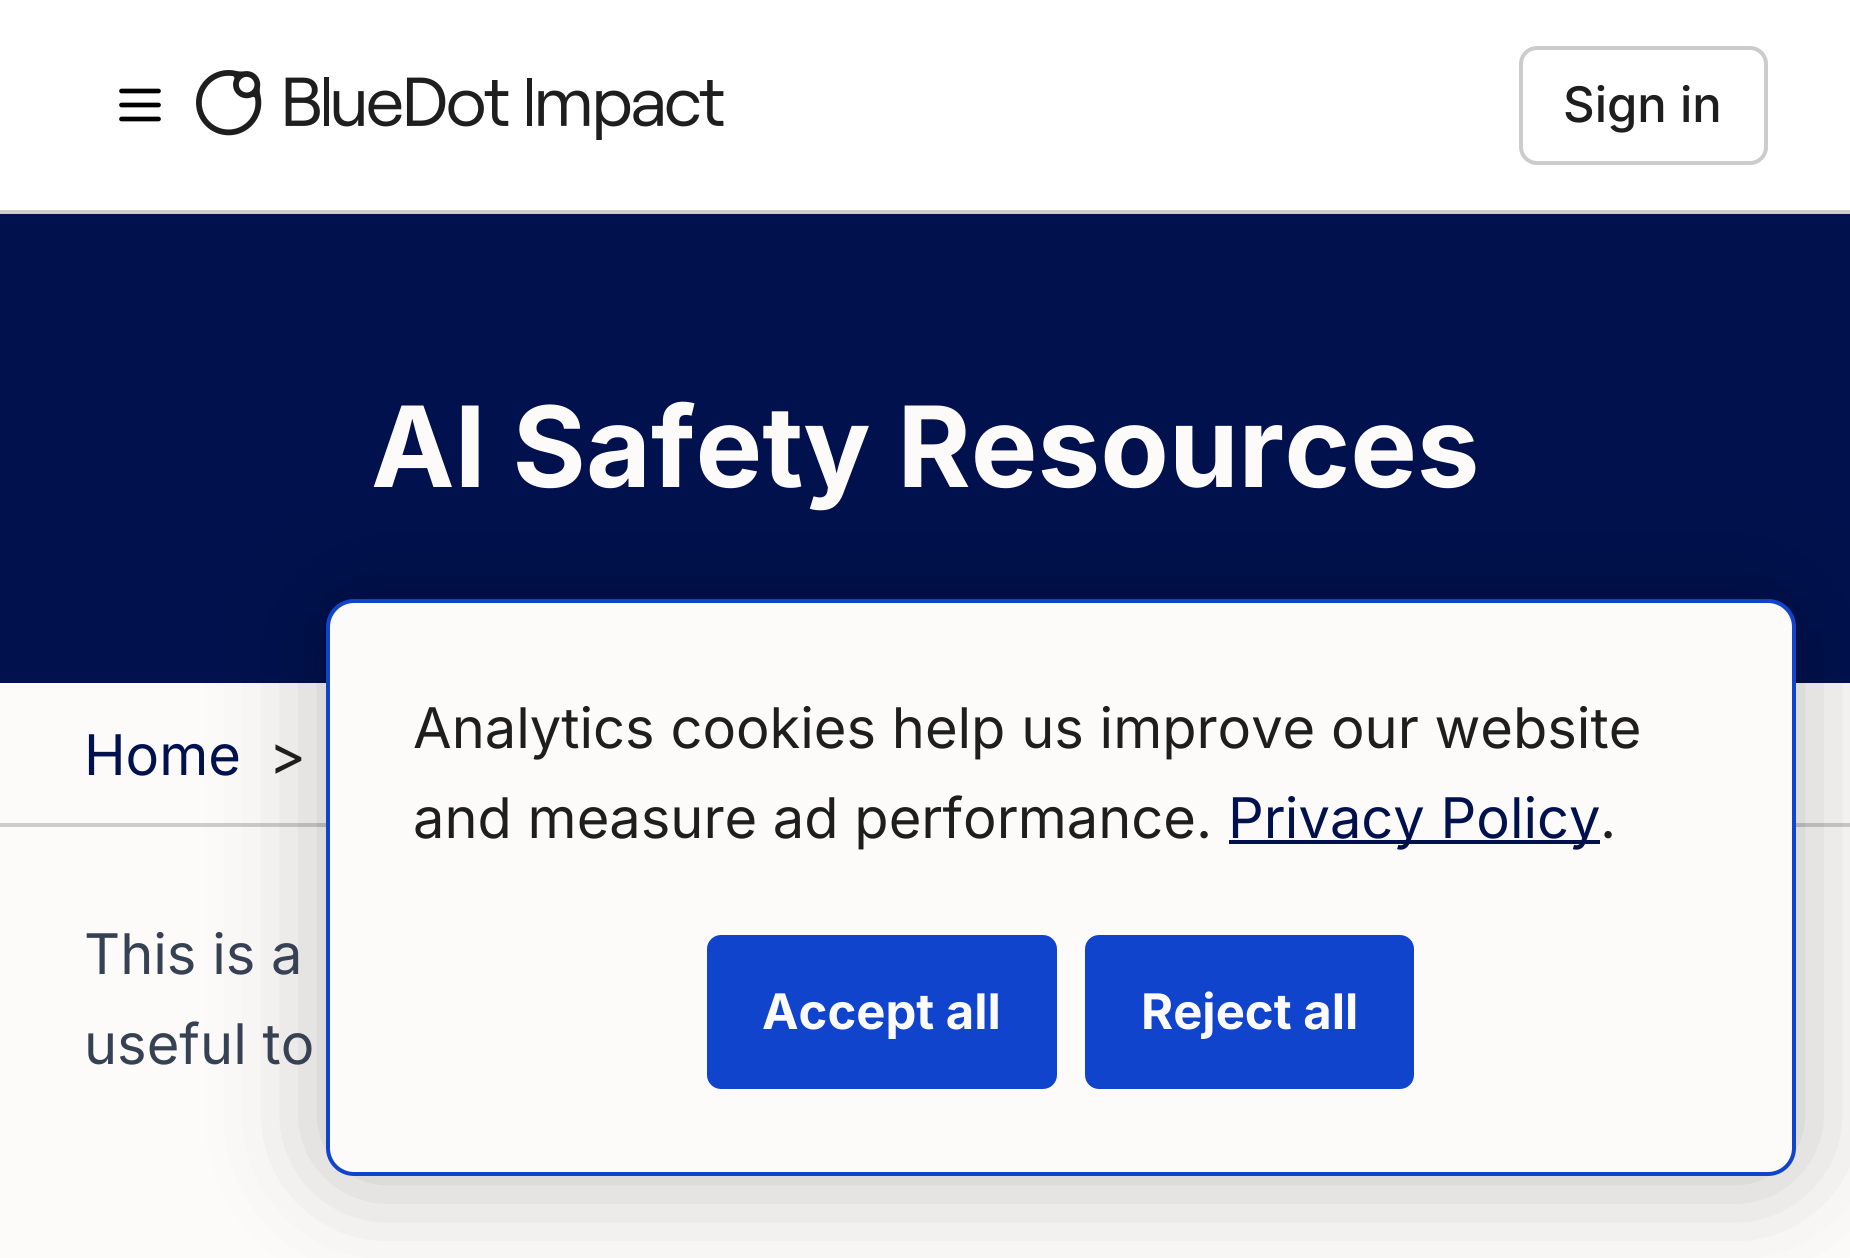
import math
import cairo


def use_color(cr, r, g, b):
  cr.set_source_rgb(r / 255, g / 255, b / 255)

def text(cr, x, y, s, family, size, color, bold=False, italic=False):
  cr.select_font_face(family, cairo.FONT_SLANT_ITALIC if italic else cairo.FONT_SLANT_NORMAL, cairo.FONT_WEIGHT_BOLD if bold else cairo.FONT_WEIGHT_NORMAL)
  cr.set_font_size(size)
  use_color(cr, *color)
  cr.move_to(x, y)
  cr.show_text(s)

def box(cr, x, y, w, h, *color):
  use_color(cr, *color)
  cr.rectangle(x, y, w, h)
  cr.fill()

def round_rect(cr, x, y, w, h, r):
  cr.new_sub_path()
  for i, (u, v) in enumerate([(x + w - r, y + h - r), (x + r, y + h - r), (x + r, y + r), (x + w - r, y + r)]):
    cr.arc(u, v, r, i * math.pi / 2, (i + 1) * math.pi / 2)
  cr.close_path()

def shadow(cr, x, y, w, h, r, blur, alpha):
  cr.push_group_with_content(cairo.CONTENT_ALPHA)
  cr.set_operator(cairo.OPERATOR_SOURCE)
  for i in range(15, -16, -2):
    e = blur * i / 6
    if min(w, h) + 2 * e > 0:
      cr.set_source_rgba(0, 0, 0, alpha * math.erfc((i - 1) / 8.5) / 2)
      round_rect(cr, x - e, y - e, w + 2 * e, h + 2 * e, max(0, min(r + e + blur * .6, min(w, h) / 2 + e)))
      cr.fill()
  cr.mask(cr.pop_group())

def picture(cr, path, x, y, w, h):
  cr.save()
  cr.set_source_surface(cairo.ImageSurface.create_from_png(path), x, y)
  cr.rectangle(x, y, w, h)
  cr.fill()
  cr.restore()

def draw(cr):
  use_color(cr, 255, 255, 255)
  cr.paint()
  box(cr, 0, 210, 1850, 4, 204, 204, 204)
  cr.new_path()
  cr.move_to(121.5, 91)
  cr.line_to(158.5, 91)
  cr.move_to(121.5, 105)
  cr.line_to(158.5, 105)
  cr.move_to(121.5, 119)
  cr.line_to(158.5, 119)
  use_color(cr, 0, 0, 0)
  cr.set_line_width(4.7)
  cr.set_line_cap(cairo.LINE_CAP_ROUND)
  cr.stroke()
  picture(cr, "img_01.png", 196, 70, 528, 70)
  round_rect(cr, 1521, 48, 245, 115, 16)
  use_color(cr, 204, 204, 204)
  cr.set_line_width(4)
  cr.set_line_cap(cairo.LINE_CAP_BUTT)
  cr.stroke()
  box(cr, 0, 683, 1850, 575, 252, 251, 249)
  box(cr, 0, 214, 1850, 469, 0, 17, 77)
  box(cr, 0, 823, 1850, 4, 204, 204, 204)
  use_color(cr, 0, 0, 0)
  shadow(cr, 326, 599, 1470, 577, 28, 56, 0.25)
  use_color(cr, 252, 251, 249)
  round_rect(cr, 328, 601, 1466, 573, 26)
  cr.fill_preserve()
  use_color(cr, 17, 68, 204)
  cr.stroke()
  box(cr, 1229, 840, 371, 4, 0, 17, 77)
  use_color(cr, 17, 68, 204)
  round_rect(cr, 707, 935, 350, 154, 14)
  cr.fill()
  round_rect(cr, 1085, 935, 329, 154, 14)
  cr.fill()
  text(cr, 1563, 122, "Sign in", "Inter Medium", 49, (30, 30, 30))
  text(cr, 371, 487, "AI Safety Resources", "Inter", 112, (252, 251, 249), bold=True)
  text(cr, 84, 775, "Home", "Inter", 56, (0, 17, 77))
  text(cr, 269, 775, ">", "Inter", 56, (30, 30, 30))
  text(cr, 84, 974, "This is a", "Inter", 56, (54, 65, 83))
  text(cr, 84, 1064, "useful to", "Inter", 56, (54, 65, 83))
  text(cr, 413, 748, "Analytics cookies help us improve our website", "Inter", 56, (30, 30, 30))
  text(cr, 413, 838, "and measure ad performance.", "Inter", 56, (30, 30, 30))
  text(cr, 1228, 838, "Privacy Policy", "Inter", 56, (0, 17, 77))
  text(cr, 1600, 838, ".", "Inter", 56, (30, 30, 30))
  text(cr, 762, 1029, "Accept all", "Inter", 49, (252, 251, 249), bold=True)
  text(cr, 1141, 1029, "Reject all", "Inter", 49, (252, 251, 249), bold=True)


surface = cairo.ImageSurface(cairo.FORMAT_RGB24, 1850, 1258)
cr = cairo.Context(surface)
options = cairo.FontOptions()
options.set_hint_metrics(cairo.HINT_METRICS_OFF)
options.set_hint_style(cairo.HINT_STYLE_NONE)
cr.set_font_options(options)
cr.set_miter_limit(4)
draw(cr)
surface.write_to_png("out.png")
